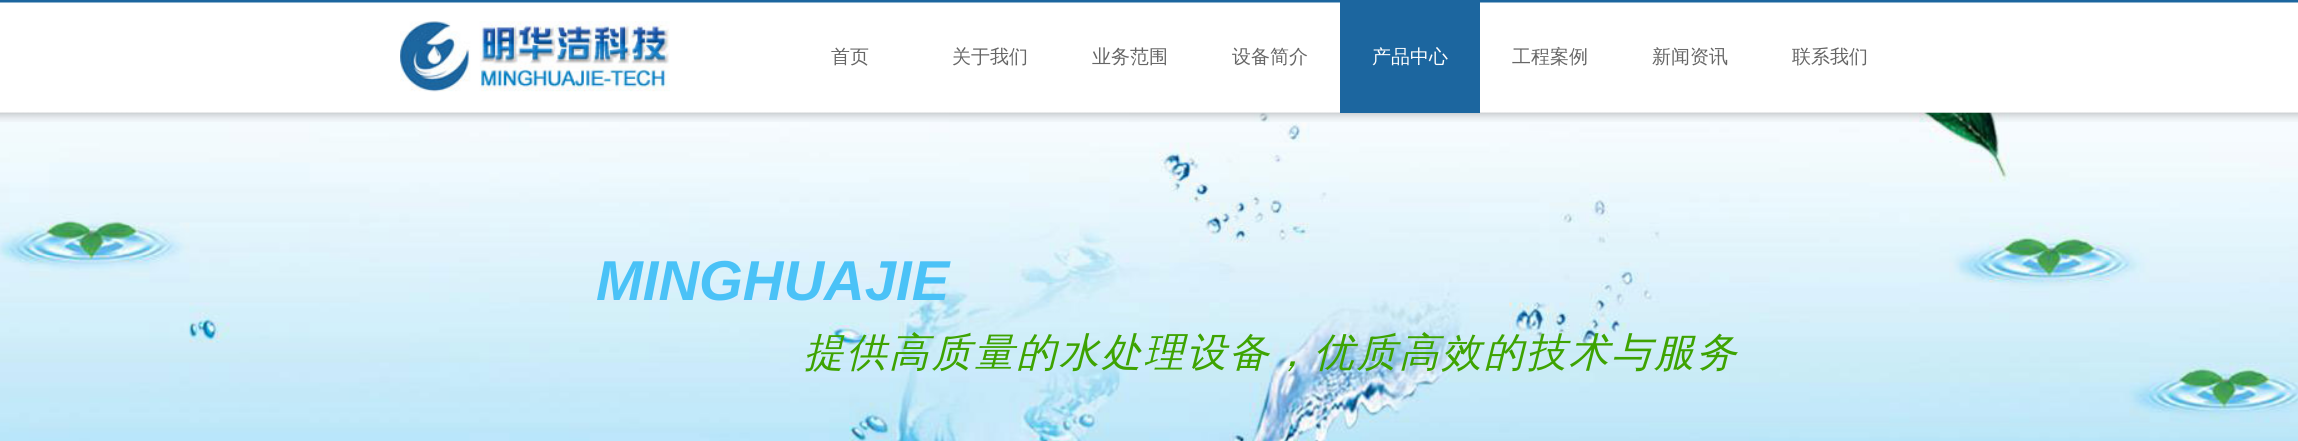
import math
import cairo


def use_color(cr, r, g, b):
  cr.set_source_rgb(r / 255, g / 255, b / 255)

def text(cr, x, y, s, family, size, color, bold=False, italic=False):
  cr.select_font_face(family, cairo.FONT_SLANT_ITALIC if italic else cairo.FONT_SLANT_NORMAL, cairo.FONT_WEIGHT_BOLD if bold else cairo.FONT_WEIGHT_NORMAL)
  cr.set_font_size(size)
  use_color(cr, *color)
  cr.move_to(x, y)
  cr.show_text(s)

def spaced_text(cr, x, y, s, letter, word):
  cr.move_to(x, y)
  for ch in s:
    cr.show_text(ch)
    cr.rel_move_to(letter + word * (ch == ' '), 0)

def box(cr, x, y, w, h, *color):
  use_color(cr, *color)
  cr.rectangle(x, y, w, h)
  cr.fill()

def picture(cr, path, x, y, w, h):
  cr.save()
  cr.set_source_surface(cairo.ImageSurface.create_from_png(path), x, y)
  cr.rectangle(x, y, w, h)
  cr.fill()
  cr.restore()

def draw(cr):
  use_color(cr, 255, 255, 255)
  cr.paint()
  picture(cr, "img_03.png", 0, 112, 2298, 329)
  picture(cr, "img_01.png", 0, 0, 2298, 122)
  picture(cr, "img_02.png", 400, 21, 270, 71)
  box(cr, 1340, 2, 140, 111, 28, 102, 159)
  text(cr, 831, 63, "首页", "WenQuanYi Zen Hei Medium", 19, (102, 102, 102))
  text(cr, 952, 63, "关于我们", "WenQuanYi Zen Hei Medium", 19, (102, 102, 102))
  text(cr, 1092, 63, "业务范围", "WenQuanYi Zen Hei Medium", 19, (102, 102, 102))
  text(cr, 1232, 63, "设备简介", "WenQuanYi Zen Hei Medium", 19, (102, 102, 102))
  text(cr, 1372, 63, "产品中心", "WenQuanYi Zen Hei Medium", 19, (255, 255, 255))
  text(cr, 1512, 63, "工程案例", "WenQuanYi Zen Hei Medium", 19, (102, 102, 102))
  text(cr, 1652, 63, "新闻资讯", "WenQuanYi Zen Hei Medium", 19, (102, 102, 102))
  text(cr, 1792, 63, "联系我们", "WenQuanYi Zen Hei Medium", 19, (102, 102, 102))
  text(cr, 596, 300, "MINGHUAJIE", "Liberation Sans", 56.25, (74, 194, 247), bold=True, italic=True)
  cr.select_font_face("WenQuanYi Zen Hei Medium", cairo.FONT_SLANT_ITALIC)
  cr.set_font_size(40)
  use_color(cr, 61, 163, 1)
  spaced_text(cr, 804, 366, "提供高质量的水处理设备，优质高效的技术与服务", 2.5, 0)


surface = cairo.ImageSurface(cairo.FORMAT_RGB24, 2298, 441)
cr = cairo.Context(surface)
options = cairo.FontOptions()
options.set_hint_metrics(cairo.HINT_METRICS_OFF)
options.set_hint_style(cairo.HINT_STYLE_NONE)
cr.set_font_options(options)
cr.set_miter_limit(4)
draw(cr)
surface.write_to_png("out.png")
